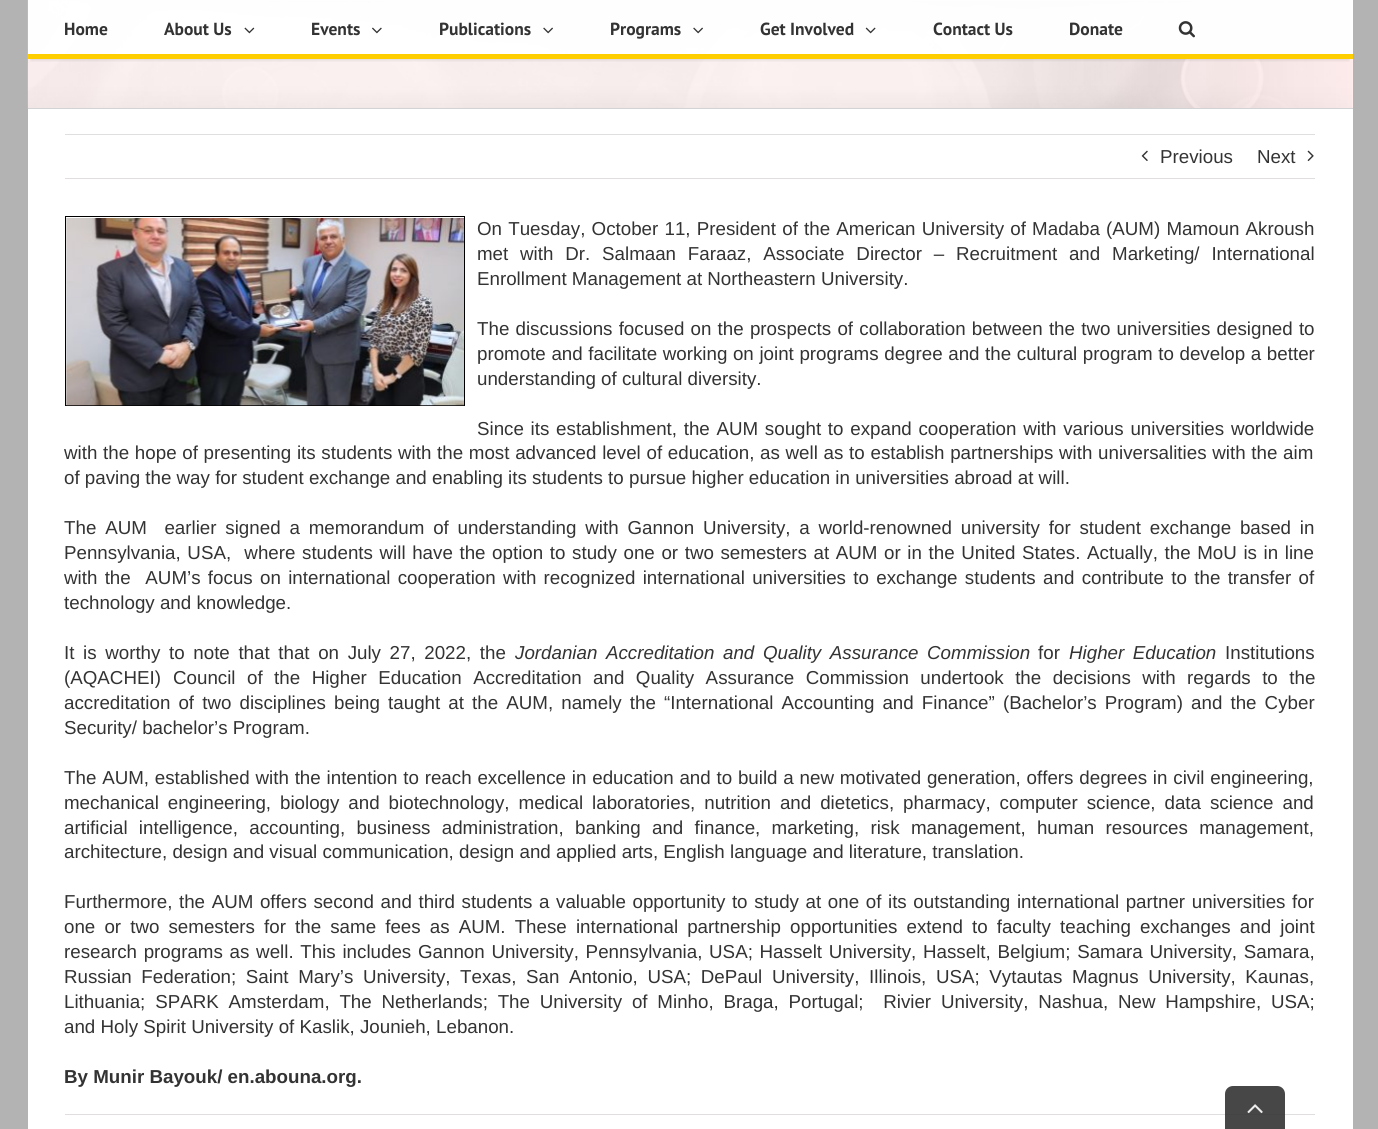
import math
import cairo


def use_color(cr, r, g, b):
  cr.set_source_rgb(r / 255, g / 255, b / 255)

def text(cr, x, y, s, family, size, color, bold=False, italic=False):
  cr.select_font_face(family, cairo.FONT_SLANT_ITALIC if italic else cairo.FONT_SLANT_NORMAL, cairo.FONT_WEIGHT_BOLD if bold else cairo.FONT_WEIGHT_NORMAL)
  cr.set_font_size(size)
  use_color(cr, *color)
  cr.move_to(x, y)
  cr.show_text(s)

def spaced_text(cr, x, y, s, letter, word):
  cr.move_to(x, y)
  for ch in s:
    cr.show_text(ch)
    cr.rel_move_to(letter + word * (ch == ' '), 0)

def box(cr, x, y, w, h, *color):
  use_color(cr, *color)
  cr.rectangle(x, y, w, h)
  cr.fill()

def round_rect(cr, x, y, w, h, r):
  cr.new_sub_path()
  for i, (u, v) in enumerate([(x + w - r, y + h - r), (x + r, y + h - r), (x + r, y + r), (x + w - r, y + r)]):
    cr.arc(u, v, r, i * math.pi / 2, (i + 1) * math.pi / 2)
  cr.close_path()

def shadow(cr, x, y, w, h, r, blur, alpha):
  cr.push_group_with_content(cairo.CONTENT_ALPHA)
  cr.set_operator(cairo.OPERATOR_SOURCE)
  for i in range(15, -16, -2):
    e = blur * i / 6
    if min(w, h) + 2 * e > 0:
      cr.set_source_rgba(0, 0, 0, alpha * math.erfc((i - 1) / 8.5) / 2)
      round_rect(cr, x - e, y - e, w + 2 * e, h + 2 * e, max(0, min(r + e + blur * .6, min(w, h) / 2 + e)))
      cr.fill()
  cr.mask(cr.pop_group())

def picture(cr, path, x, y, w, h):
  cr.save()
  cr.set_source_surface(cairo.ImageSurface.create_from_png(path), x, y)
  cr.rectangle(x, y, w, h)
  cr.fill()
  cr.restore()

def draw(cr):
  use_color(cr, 179, 179, 179)
  cr.paint()
  box(cr, 28, 109, 1325, 1020, 255, 255, 255)
  box(cr, 28, 1, 1325, 107, 255, 237, 237)
  picture(cr, "img_01.png", 27, 0, 1325, 109)
  box(cr, 28, 0, 1325, 1, 210, 211, 212)
  box(cr, 28, 108, 1325, 1, 210, 211, 212)
  cr.save()
  cr.rectangle(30, 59, 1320, 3)
  cr.clip()
  use_color(cr, 0, 0, 0)
  shadow(cr, 31, 9, 1318, 51, 0, 2, 0.12)
  cr.restore()
  cr.set_source_rgba(1, 1, 1, 0.97)
  cr.rectangle(28, 0, 1325, 54)
  cr.fill()
  box(cr, 28, 54, 1325, 5, 255, 206, 0)
  picture(cr, "img_02.png", 244, 27, 11, 7)
  picture(cr, "img_03.png", 372, 27, 10, 7)
  picture(cr, "img_04.png", 543, 27, 10, 7)
  picture(cr, "img_05.png", 693, 27, 10, 7)
  picture(cr, "img_06.png", 865, 27, 11, 7)
  picture(cr, "img_07.png", 1178, 21, 17, 17)
  box(cr, 65, 134, 1250, 1, 224, 222, 222)
  box(cr, 65, 178, 1250, 1, 224, 222, 222)
  picture(cr, "img_08.png", 1141, 150, 7, 11)
  picture(cr, "img_09.png", 1307, 150, 7, 12)
  cr.rectangle(65.5, 216.5, 399, 189)
  use_color(cr, 0, 0, 0)
  cr.set_line_width(1)
  cr.stroke()
  picture(cr, "img_10.png", 66, 218, 398, 188)
  box(cr, 65, 1114, 1250, 1, 224, 222, 222)
  cr.set_source_rgba(0.2, 0.2, 0.2, 0.9)
  cr.new_path()
  cr.move_to(1233, 1086)
  cr.line_to(1277, 1086)
  cr.curve_to(1281.5, 1086, 1285, 1089.5, 1285, 1094)
  cr.line_to(1285, 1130)
  cr.line_to(1225, 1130)
  cr.line_to(1225, 1094)
  cr.curve_to(1225, 1089.5, 1228.5, 1086, 1233, 1086)
  cr.close_path()
  cr.fill()
  picture(cr, "img_11.png", 1247, 1104, 16, 10)
  text(cr, 64, 35, "Home", "PT Sans", 17.5, (51, 51, 51), bold=True)
  text(cr, 164, 35, "About Us", "PT Sans", 17.5, (51, 51, 51), bold=True)
  text(cr, 311, 35, "Events", "PT Sans", 17.5, (51, 51, 51), bold=True)
  text(cr, 439, 35, "Publications", "PT Sans", 17.5, (51, 51, 51), bold=True)
  text(cr, 610, 35, "Programs", "PT Sans", 17.5, (51, 51, 51), bold=True)
  text(cr, 760, 35, "Get Involved", "PT Sans", 17.5, (51, 51, 51), bold=True)
  text(cr, 933, 35, "Contact Us", "PT Sans", 17.5, (51, 51, 51), bold=True)
  text(cr, 1069, 35, "Donate", "PT Sans", 17.5, (51, 51, 51), bold=True)
  text(cr, 1160, 163, "Previous", "Liberation Sans", 18.75, (51, 51, 51))
  text(cr, 1257, 163, "Next", "Liberation Sans", 18.75, (51, 51, 51))
  spaced_text(cr, 477, 235, "On Tuesday, October 11, President of the American University of Madaba (AUM) Mamoun Akroush", 0, 1)
  spaced_text(cr, 477, 260, "met with Dr. Salmaan Faraaz, Associate Director – Recruitment and Marketing/ International", 0, 6.6)
  text(cr, 477, 285, "Enrollment Management at Northeastern University.", "Liberation Sans", 18.75, (51, 51, 51))
  spaced_text(cr, 477, 335, "The discussions focused on the prospects of collaboration between the two universities designed to", 0, 1)
  spaced_text(cr, 477, 360, "promote and facilitate working on joint programs degree and the cultural program to develop a better", 0, 0.4)
  text(cr, 477, 385, "understanding of cultural diversity.", "Liberation Sans", 18.75, (51, 51, 51))
  spaced_text(cr, 477, 435, "Since its establishment, the AUM sought to expand cooperation with various universities worldwide", 0, 1.5)
  spaced_text(cr, 64, 459, "with the hope of presenting its students with the most advanced level of education, as well as to establish partnerships with universalities with the aim", 0, 0.5)
  text(cr, 64, 484, "of paving the way for student exchange and enabling its students to pursue higher education in universities abroad at will.", "Liberation Sans", 18.75, (51, 51, 51))
  spaced_text(cr, 64, 534, "The AUM  earlier signed a memorandum of understanding with Gannon University, a world-renowned university for student exchange based in", 0, 3.6)
  spaced_text(cr, 64, 559, "Pennsylvania, USA,  where students will have the option to study one or two semesters at AUM or in the United States. Actually, the MoU is in line", 0, 1.4)
  spaced_text(cr, 64, 584, "with the  AUM’s focus on international cooperation with recognized international universities to exchange students and contribute to the transfer of", 0, 2.1)
  text(cr, 64, 609, "technology and knowledge.", "Liberation Sans", 18.75, (51, 51, 51))
  spaced_text(cr, 64, 659, "It is worthy to note that that on July 27, 2022, the", 0, 3.4)
  cr.select_font_face("Liberation Sans", cairo.FONT_SLANT_ITALIC)
  spaced_text(cr, 515, 659, "Jordanian Accreditation and Quality Assurance Commission", 0, 3.4)
  text(cr, 1038, 659, "for", "Liberation Sans", 18.75, (51, 51, 51))
  cr.select_font_face("Liberation Sans", cairo.FONT_SLANT_ITALIC)
  spaced_text(cr, 1069, 659, "Higher Education", 0, 3.4)
  text(cr, 1225, 659, "Institutions", "Liberation Sans", 18.75, (51, 51, 51))
  text(cr, 64, 684, "(AQACHEI)", "Liberation Sans", 18.75, (51, 51, 51))
  spaced_text(cr, 173, 684, "Council of the Higher Education Accreditation and Quality Assurance Commission undertook the decisions with regards to the", 0, 6.25)
  spaced_text(cr, 64, 709, "accreditation of two disciplines being taught at the AUM, namely the “International Accounting and Finance” (Bachelor’s Program) and the Cyber", 0, 2.9)
  text(cr, 64, 734, "Security/ bachelor’s Program.", "Liberation Sans", 18.75, (51, 51, 51))
  spaced_text(cr, 64, 784, "The AUM, established with the intention to reach excellence in education and to build a new motivated generation, offers degrees in civil engineering,", 0, 0.6)
  spaced_text(cr, 64, 809, "mechanical engineering, biology and biotechnology, medical laboratories, nutrition and dietetics, pharmacy, computer science, data science and", 0, 3.75)
  spaced_text(cr, 64, 834, "artificial intelligence, accounting, business administration, banking and finance, marketing, risk management, human resources management,", 0, 6.1)
  text(cr, 64, 858, "architecture, design and visual communication, design and applied arts, English language and literature, translation.", "Liberation Sans", 18.75, (51, 51, 51))
  spaced_text(cr, 64, 908, "Furthermore, the AUM offers second and third students a valuable opportunity to study at one of its outstanding international partner universities for", 0, 1.4)
  spaced_text(cr, 64, 933, "one or two semesters for the same fees as AUM. These international partnership opportunities extend to faculty teaching exchanges and joint", 0, 3.9)
  spaced_text(cr, 64, 958, "research programs as well. This includes Gannon University, Pennsylvania, USA; Hasselt University, Hasselt, Belgium; Samara University, Samara,", 0, 1.5)
  spaced_text(cr, 64, 983, "Russian Federation; Saint Mary’s University, Texas, San Antonio, USA; DePaul University, Illinois, USA; Vytautas Magnus University, Kaunas,", 0, 4.4)
  spaced_text(cr, 64, 1008, "Lithuania; SPARK Amsterdam, The Netherlands; The University of Minho, Braga, Portugal;  Rivier University, Nashua, New Hampshire, USA;", 0, 4.6)
  text(cr, 64, 1033, "and Holy Spirit University of Kaslik, Jounieh, Lebanon.", "Liberation Sans", 18.75, (51, 51, 51))
  text(cr, 64, 1083, "By Munir Bayouk/ en.abouna.org.", "Liberation Sans", 18.75, (51, 51, 51), bold=True)


surface = cairo.ImageSurface(cairo.FORMAT_RGB24, 1378, 1129)
cr = cairo.Context(surface)
options = cairo.FontOptions()
options.set_hint_metrics(cairo.HINT_METRICS_OFF)
options.set_hint_style(cairo.HINT_STYLE_NONE)
cr.set_font_options(options)
cr.set_miter_limit(4)
draw(cr)
surface.write_to_png("out.png")
